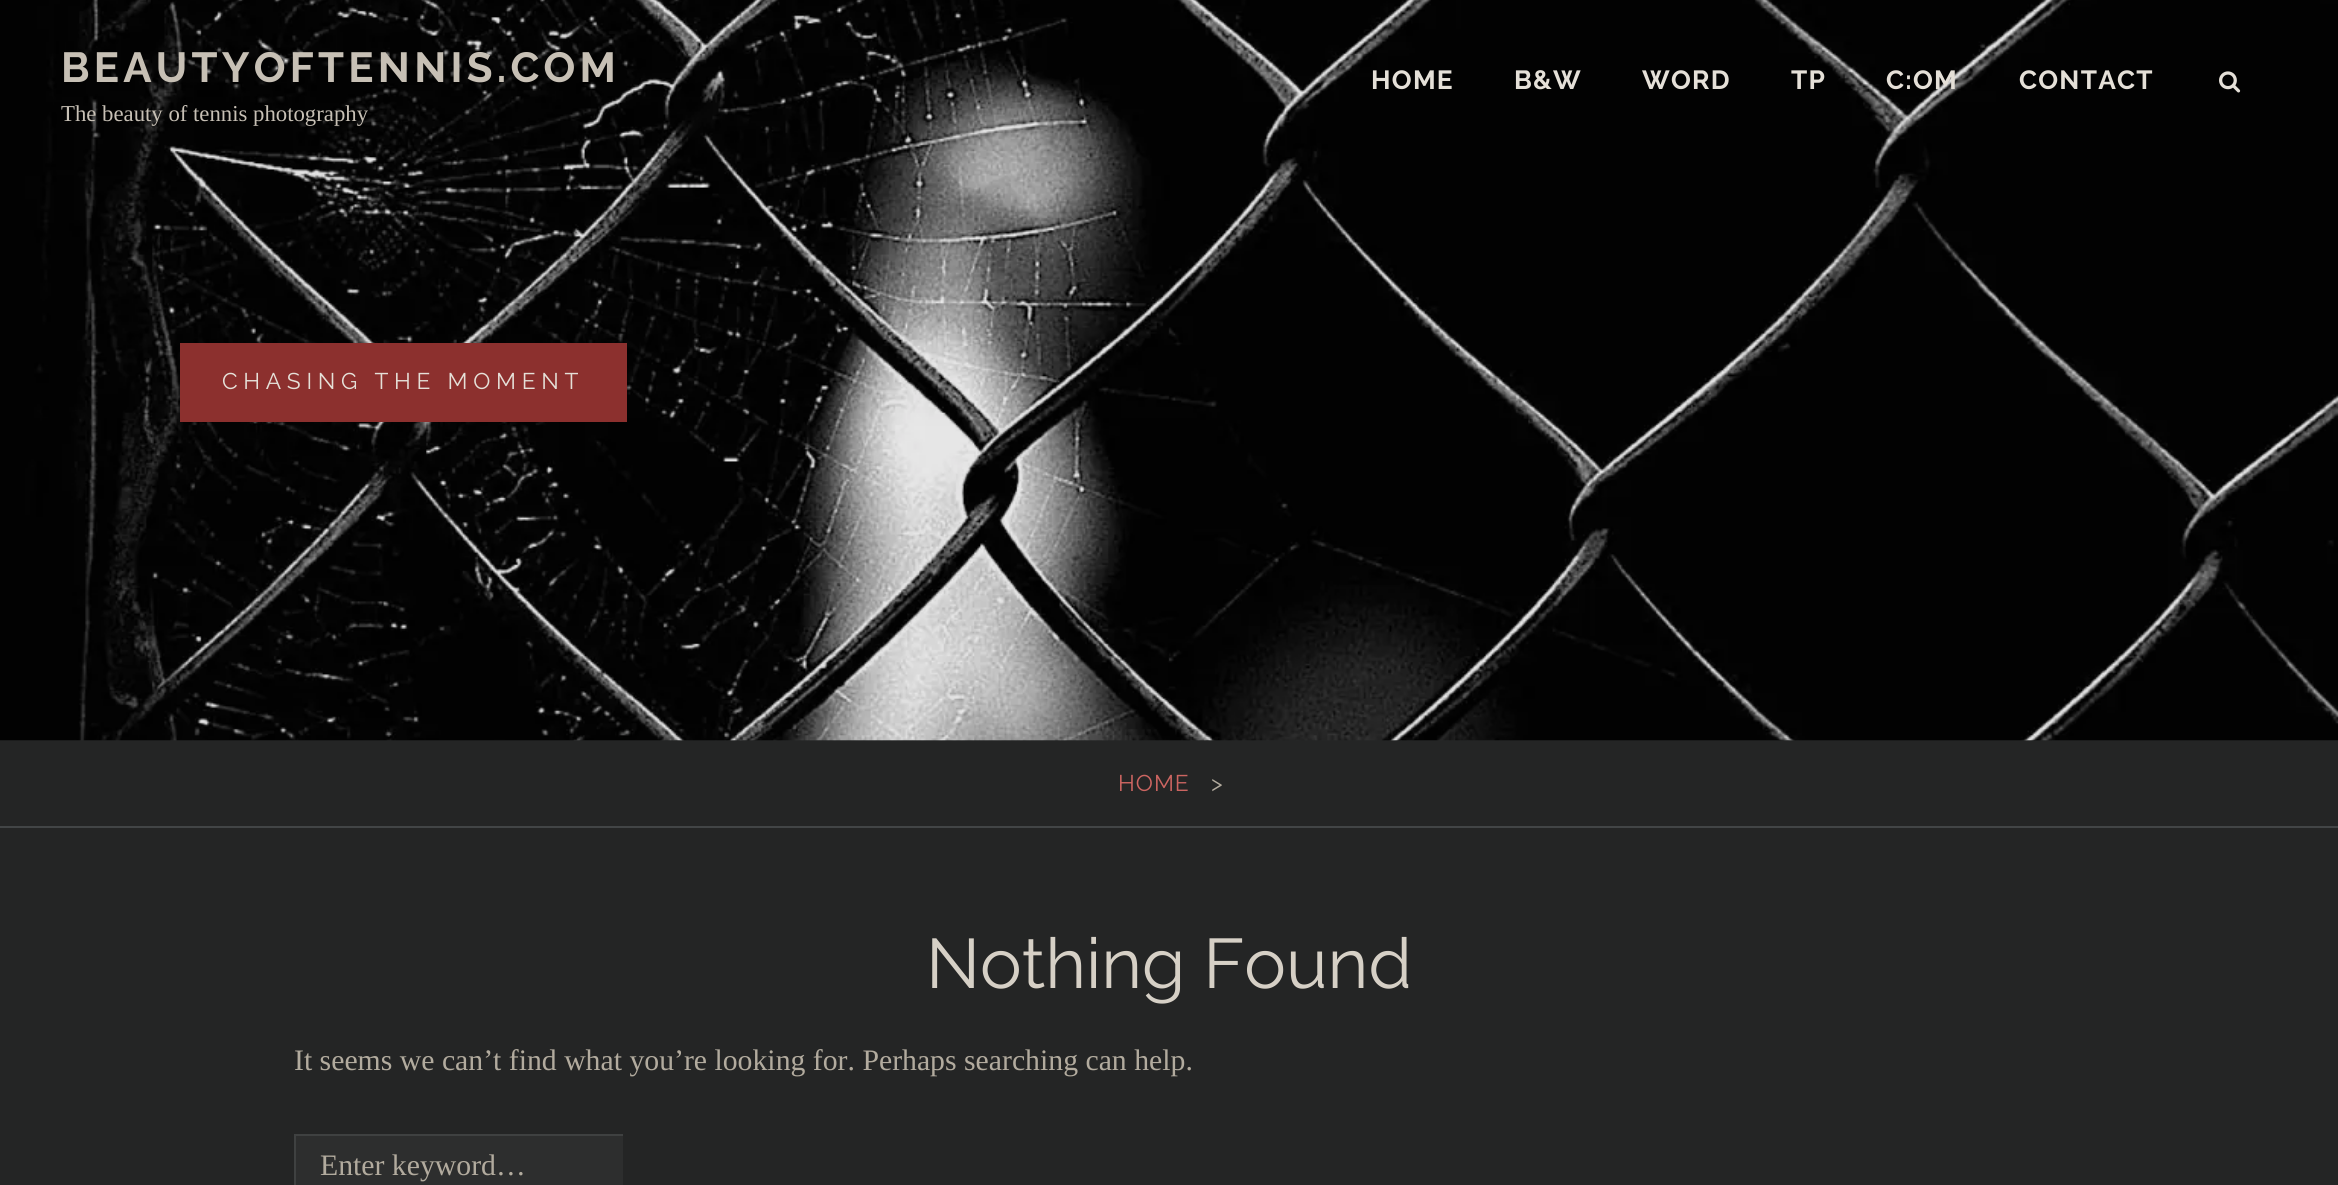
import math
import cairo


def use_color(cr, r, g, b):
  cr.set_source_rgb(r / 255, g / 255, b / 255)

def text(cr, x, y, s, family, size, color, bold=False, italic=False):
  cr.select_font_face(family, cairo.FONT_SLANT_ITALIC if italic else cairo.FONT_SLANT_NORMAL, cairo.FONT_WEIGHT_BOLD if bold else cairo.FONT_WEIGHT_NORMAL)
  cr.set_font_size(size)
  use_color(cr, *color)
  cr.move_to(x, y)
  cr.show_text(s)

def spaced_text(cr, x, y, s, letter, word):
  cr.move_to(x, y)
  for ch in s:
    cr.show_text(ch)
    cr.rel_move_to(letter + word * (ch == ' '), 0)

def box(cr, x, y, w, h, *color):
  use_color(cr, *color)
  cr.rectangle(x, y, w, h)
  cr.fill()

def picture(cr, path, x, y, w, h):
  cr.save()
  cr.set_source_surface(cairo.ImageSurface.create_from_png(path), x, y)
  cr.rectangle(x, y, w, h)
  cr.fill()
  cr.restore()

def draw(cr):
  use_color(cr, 36, 37, 37)
  cr.paint()
  picture(cr, "img_02.png", 0, 0, 2338, 741)
  picture(cr, "img_01.png", 2219, 71, 22, 22)
  box(cr, 180, 343, 447, 79, 140, 48, 46)
  box(cr, 0, 826, 2338, 2, 66, 69, 70)
  box(cr, 296, 1136, 327, 49, 45, 46, 46)
  box(cr, 294, 1134, 329, 2, 63, 65, 65)
  box(cr, 294, 1134, 2, 51, 63, 65, 65)
  cr.select_font_face("Raleway", cairo.FONT_SLANT_NORMAL, cairo.FONT_WEIGHT_BOLD)
  cr.set_font_size(42)
  use_color(cr, 199, 192, 181)
  spaced_text(cr, 61, 82, "BEAUTYOFTENNIS.COM", 4.25, 0)
  text(cr, 61, 121, "The beauty of tennis photography", "Liberation Serif", 22.75, (199, 192, 181))
  cr.select_font_face("Raleway", cairo.FONT_SLANT_NORMAL, cairo.FONT_WEIGHT_BOLD)
  cr.set_font_size(26.25)
  use_color(cr, 229, 224, 216)
  spaced_text(cr, 1371, 89, "HOME", 1.25, 0)
  spaced_text(cr, 1514, 89, "B&W", 1.25, 0)
  spaced_text(cr, 1642, 89, "WORD", 1.25, 0)
  spaced_text(cr, 1791, 89, "TP", 1.25, 0)
  spaced_text(cr, 1886, 89, "C:OM", 1.25, 0)
  spaced_text(cr, 2019, 89, "CONTACT", 1.25, 0)
  cr.select_font_face("Raleway")
  cr.set_font_size(22.75)
  spaced_text(cr, 222, 389, "CHASING THE MOMENT", 5.7, 0)
  use_color(cr, 204, 101, 97)
  spaced_text(cr, 1118, 791, "HOME", 1, 0)
  use_color(cr, 178, 171, 158)
  spaced_text(cr, 1211, 791, ">", 1, 0)
  text(cr, 926, 988, "Nothing Found", "Raleway", 70, (214, 208, 198))
  text(cr, 294, 1070, "It seems we can’t find what you’re looking for. Perhaps searching can help.", "Liberation Serif", 29.75, (178, 171, 158))
  text(cr, 320, 1175, "Enter keyword…", "Liberation Serif", 29.75, (178, 171, 158))


surface = cairo.ImageSurface(cairo.FORMAT_RGB24, 2338, 1185)
cr = cairo.Context(surface)
options = cairo.FontOptions()
options.set_hint_metrics(cairo.HINT_METRICS_OFF)
options.set_hint_style(cairo.HINT_STYLE_NONE)
cr.set_font_options(options)
cr.set_miter_limit(4)
draw(cr)
surface.write_to_png("out.png")
